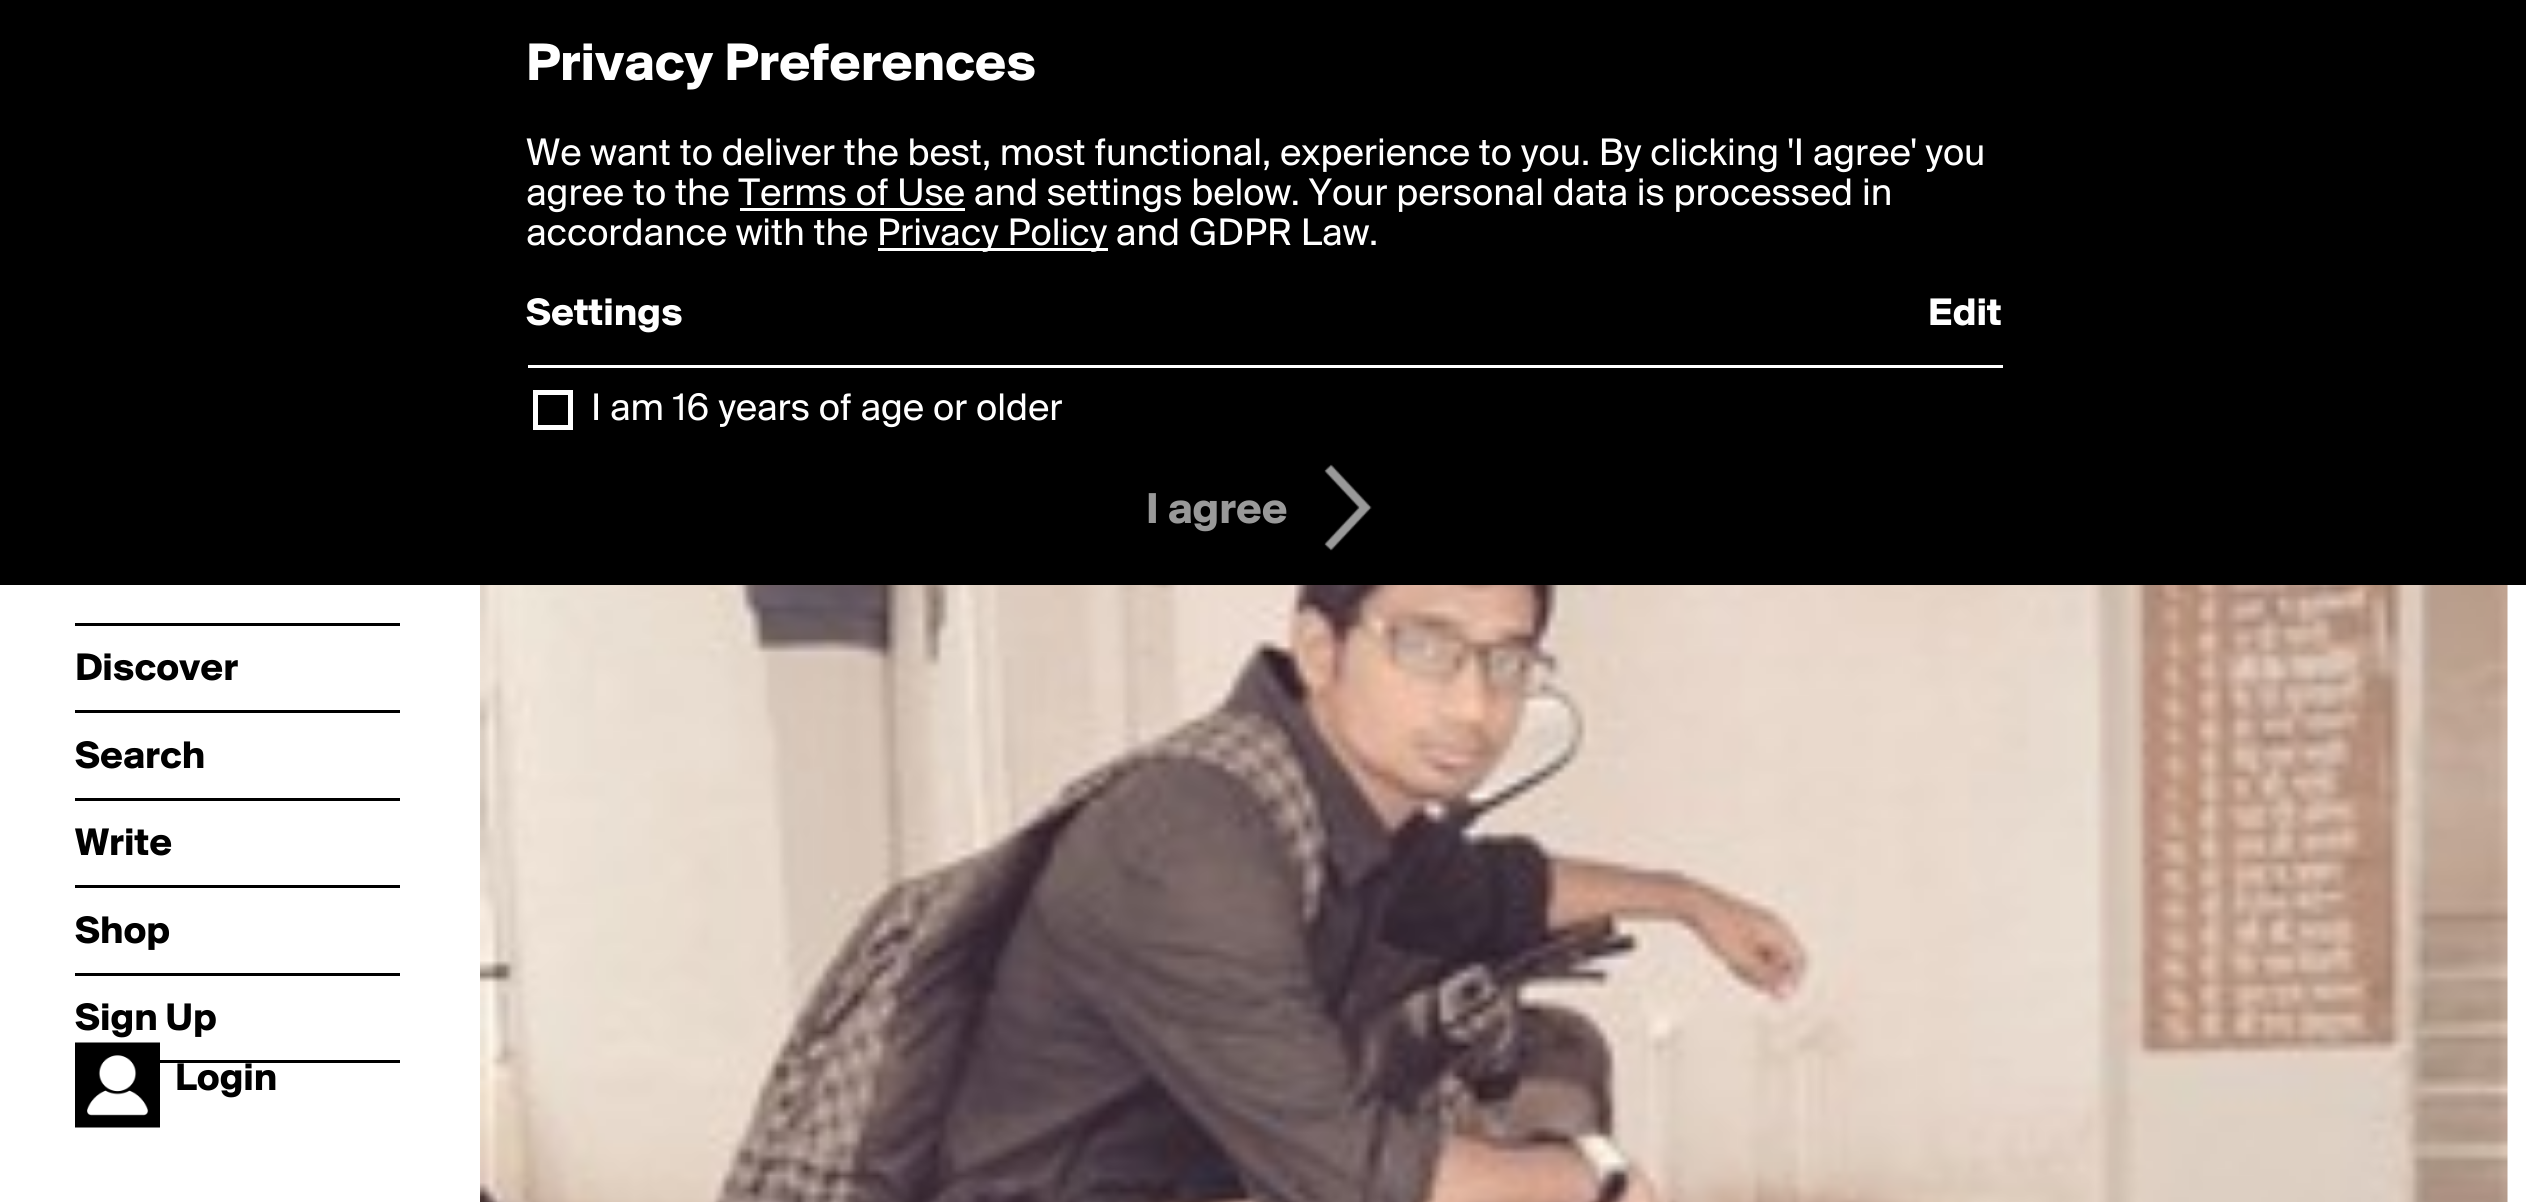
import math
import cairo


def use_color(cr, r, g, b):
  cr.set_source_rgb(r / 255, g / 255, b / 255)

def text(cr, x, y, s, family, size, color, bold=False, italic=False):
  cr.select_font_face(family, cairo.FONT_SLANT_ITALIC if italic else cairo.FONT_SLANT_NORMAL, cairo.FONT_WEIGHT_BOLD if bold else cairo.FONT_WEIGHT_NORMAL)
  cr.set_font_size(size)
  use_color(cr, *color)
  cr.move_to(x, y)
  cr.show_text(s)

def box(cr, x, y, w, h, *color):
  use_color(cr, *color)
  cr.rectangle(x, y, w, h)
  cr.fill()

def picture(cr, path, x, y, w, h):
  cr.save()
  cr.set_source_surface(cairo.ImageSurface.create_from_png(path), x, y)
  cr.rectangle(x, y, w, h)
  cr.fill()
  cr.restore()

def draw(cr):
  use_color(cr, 255, 255, 255)
  cr.paint()
  box(cr, 0, 0, 2526, 585, 0, 0, 0)
  box(cr, 740, 208, 225, 3, 255, 255, 255)
  box(cr, 878, 248, 230, 3, 255, 255, 255)
  box(cr, 528, 365, 1475, 3, 255, 255, 255)
  cr.rectangle(535.5, 392.5, 35, 35)
  cr.set_line_width(5)
  cr.stroke()
  picture(cr, "img_01.png", 1324, 464, 48, 87)
  box(cr, 75, 623, 325, 3, 0, 0, 0)
  box(cr, 75, 710, 325, 3, 0, 0, 0)
  box(cr, 75, 798, 325, 3, 0, 0, 0)
  box(cr, 75, 885, 325, 3, 0, 0, 0)
  box(cr, 75, 973, 325, 3, 0, 0, 0)
  box(cr, 160, 1060, 240, 3, 0, 0, 0)
  picture(cr, "img_02.png", 75, 1042, 85, 86)
  picture(cr, "img_03.png", 480, 585, 2028, 617)
  text(cr, 526, 80, "Privacy Preferences", "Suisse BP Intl", 55, (255, 255, 255), bold=True)
  text(cr, 526, 165, "We want to deliver the best, most functional, experience to you. By clicking 'I agree' you", "Suisse BP Intl", 40, (255, 255, 255))
  text(cr, 526, 205, "agree to the Terms of Use and settings below. Your personal data is processed in", "Suisse BP Intl", 40, (255, 255, 255))
  text(cr, 526, 245, "accordance with the", "Suisse BP Intl", 40, (255, 255, 255))
  text(cr, 877, 245, "Privacy Policy and GDPR Law.", "Suisse BP Intl", 40, (255, 255, 255))
  text(cr, 526, 325, "Settings", "Suisse BP Intl", 40, (255, 255, 255), bold=True)
  text(cr, 1928, 325, "Edit", "Suisse BP Intl", 40, (255, 255, 255), bold=True)
  text(cr, 591, 420, "I am 16 years of age or older", "Suisse BP Intl", 40, (255, 255, 255))
  text(cr, 1146, 523, "I agree", "Suisse BP Intl", 45, (153, 153, 153), bold=True)
  text(cr, 75, 680, "Discover", "Suisse BP Intl", 40, (0, 0, 0), bold=True)
  text(cr, 75, 768, "Search", "Suisse BP Intl", 40, (0, 0, 0), bold=True)
  text(cr, 75, 855, "Write", "Suisse BP Intl", 40, (0, 0, 0), bold=True)
  text(cr, 75, 943, "Shop", "Suisse BP Intl", 40, (0, 0, 0), bold=True)
  text(cr, 75, 1030, "Sign Up", "Suisse BP Intl", 40, (0, 0, 0), bold=True)
  text(cr, 175, 1090, "Login", "Suisse BP Intl", 40, (0, 0, 0), bold=True)


surface = cairo.ImageSurface(cairo.FORMAT_RGB24, 2526, 1202)
cr = cairo.Context(surface)
options = cairo.FontOptions()
options.set_hint_metrics(cairo.HINT_METRICS_OFF)
options.set_hint_style(cairo.HINT_STYLE_NONE)
cr.set_font_options(options)
cr.set_miter_limit(4)
draw(cr)
surface.write_to_png("out.png")
